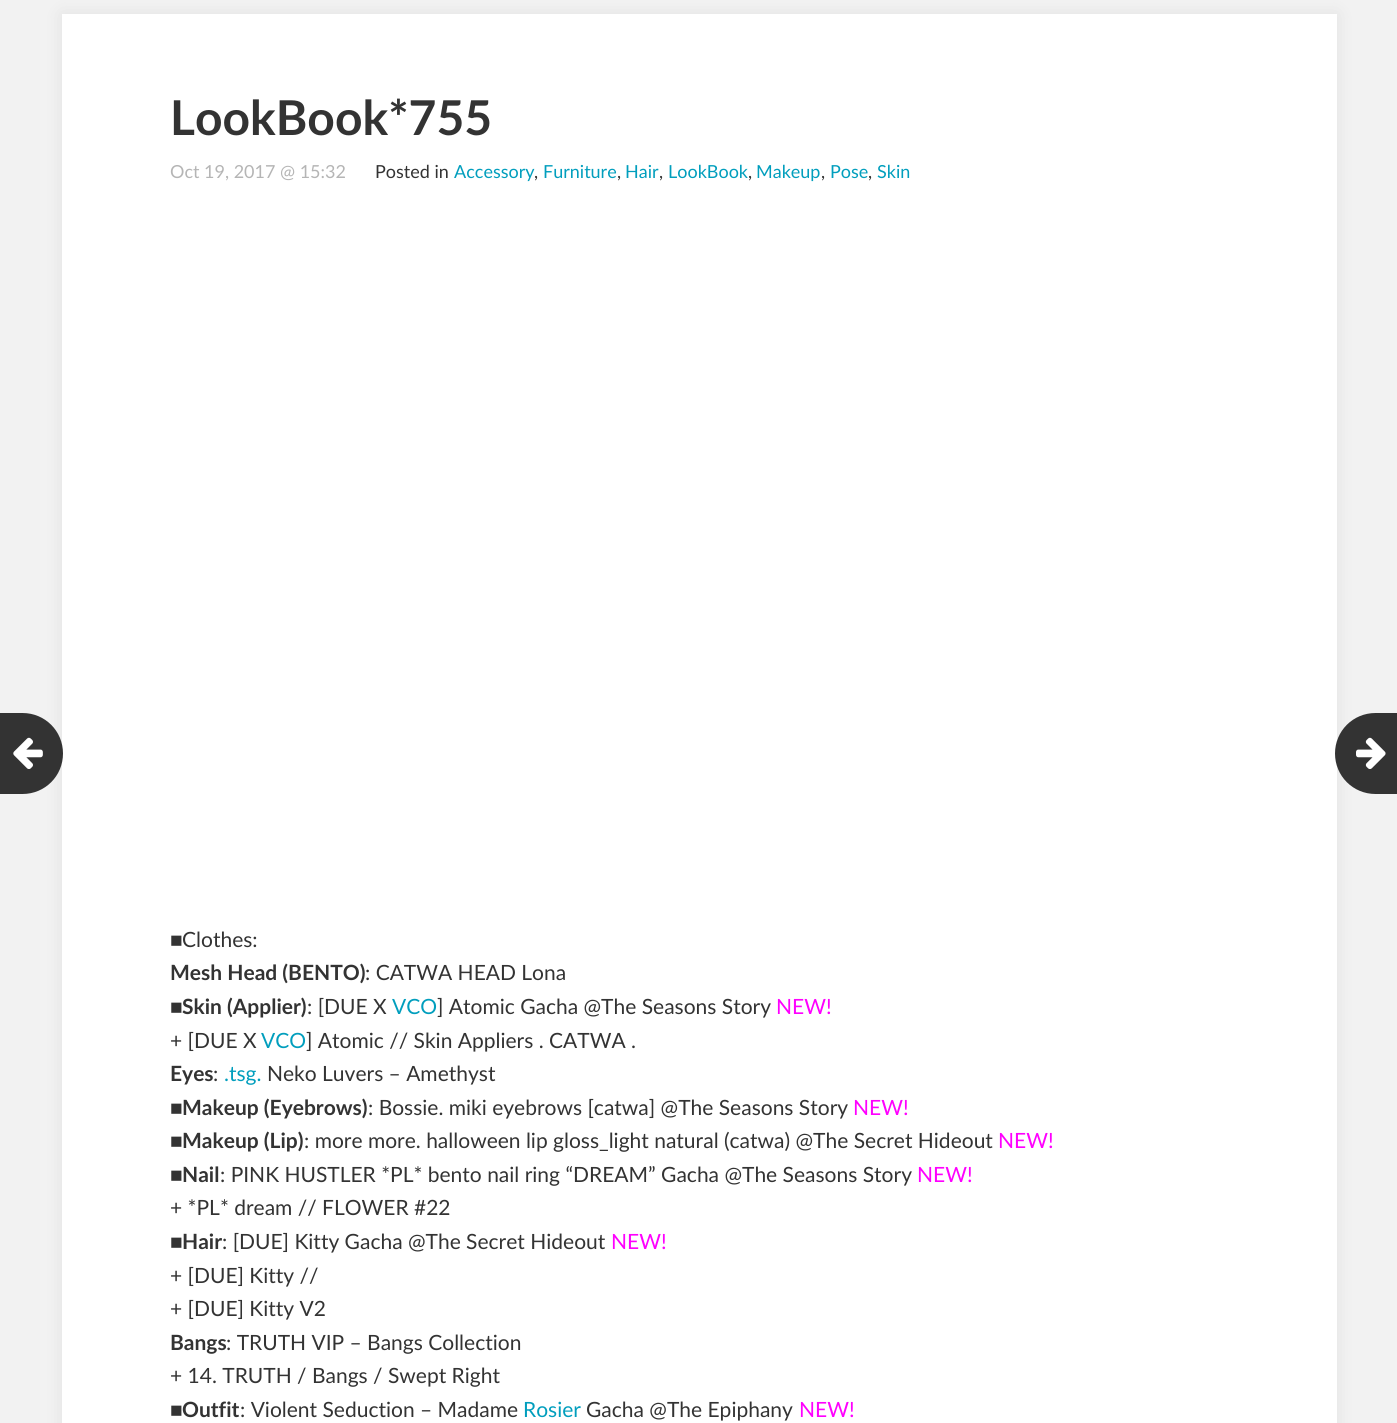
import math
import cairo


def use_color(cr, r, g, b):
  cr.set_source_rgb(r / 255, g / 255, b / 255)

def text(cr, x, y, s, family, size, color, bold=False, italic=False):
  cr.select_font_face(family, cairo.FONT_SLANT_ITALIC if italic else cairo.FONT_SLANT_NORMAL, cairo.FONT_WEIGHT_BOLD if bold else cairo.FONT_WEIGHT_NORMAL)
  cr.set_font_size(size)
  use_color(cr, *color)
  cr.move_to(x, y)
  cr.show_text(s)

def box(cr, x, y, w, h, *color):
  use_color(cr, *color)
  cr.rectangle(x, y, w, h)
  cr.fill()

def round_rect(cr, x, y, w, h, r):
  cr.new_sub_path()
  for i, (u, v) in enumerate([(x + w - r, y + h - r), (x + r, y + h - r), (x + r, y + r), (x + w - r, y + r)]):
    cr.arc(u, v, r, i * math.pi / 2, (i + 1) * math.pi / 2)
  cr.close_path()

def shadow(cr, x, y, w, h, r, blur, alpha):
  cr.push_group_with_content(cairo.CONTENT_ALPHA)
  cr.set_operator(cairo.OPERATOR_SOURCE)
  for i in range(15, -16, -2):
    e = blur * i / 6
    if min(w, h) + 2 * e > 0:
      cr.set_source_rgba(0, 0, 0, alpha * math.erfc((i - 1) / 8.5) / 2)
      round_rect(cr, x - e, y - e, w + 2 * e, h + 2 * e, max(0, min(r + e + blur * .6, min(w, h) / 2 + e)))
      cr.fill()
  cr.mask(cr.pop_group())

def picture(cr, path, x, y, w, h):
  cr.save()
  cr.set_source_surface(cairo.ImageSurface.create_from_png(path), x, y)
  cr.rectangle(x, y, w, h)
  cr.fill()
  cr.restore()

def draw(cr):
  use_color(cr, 242, 242, 242)
  cr.paint()
  use_color(cr, 0, 0, 0)
  shadow(cr, 62, 14, 1275, 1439, 0, 10, 0.07)
  box(cr, 62, 14, 1275, 1409, 255, 255, 255)
  use_color(cr, 51, 51, 51)
  cr.new_path()
  cr.move_to(-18, 713)
  cr.line_to(22.5, 713)
  cr.curve_to(45, 713, 63, 731, 63, 753.5)
  cr.curve_to(63, 776, 45, 794, 22.5, 794)
  cr.line_to(-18, 794)
  cr.close_path()
  cr.fill()
  picture(cr, "img_01.png", 13, 737, 30, 32)
  cr.new_path()
  cr.move_to(1375.5, 713)
  cr.line_to(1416, 713)
  cr.line_to(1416, 794)
  cr.line_to(1375.5, 794)
  cr.curve_to(1353, 794, 1335, 776, 1335, 753.5)
  cr.curve_to(1335, 731, 1353, 713, 1375.5, 713)
  cr.close_path()
  cr.fill()
  picture(cr, "img_02.png", 1356, 737, 30, 32)
  text(cr, 170, 135, "LookBook*755", "Lato", 48, (51, 51, 51), bold=True)
  text(cr, 170, 178, "Oct 19, 2017 @ 15:32", "Lato", 18, (181, 181, 181))
  text(cr, 375, 178, "Posted in", "Lato", 18, (51, 51, 51))
  text(cr, 454, 178, "Accessory", "Lato", 18, (1, 158, 189))
  text(cr, 534, 178, ",", "Lato", 18, (51, 51, 51))
  text(cr, 543, 178, "Furniture", "Lato", 18, (1, 158, 189))
  text(cr, 617, 178, ",", "Lato", 18, (51, 51, 51))
  text(cr, 625, 178, "Hair", "Lato", 18, (1, 158, 189))
  text(cr, 659, 178, ",", "Lato", 18, (51, 51, 51))
  text(cr, 668, 178, "LookBook", "Lato", 18, (1, 158, 189))
  text(cr, 748, 178, ",", "Lato", 18, (51, 51, 51))
  text(cr, 756, 178, "Makeup", "Lato", 18, (1, 158, 189))
  text(cr, 821, 178, ",", "Lato", 18, (51, 51, 51))
  text(cr, 830, 178, "Pose", "Lato", 18, (1, 158, 189))
  text(cr, 868, 178, ",", "Lato", 18, (51, 51, 51))
  text(cr, 877, 178, "Skin", "Lato", 18, (1, 158, 189))
  text(cr, 170, 947, "■", "Liberation Sans", 21, (51, 51, 51))
  text(cr, 182, 947, "Clothes:", "Lato", 21, (51, 51, 51))
  text(cr, 170, 980, "Mesh Head (BENTO)", "Lato", 21, (51, 51, 51), bold=True)
  text(cr, 365, 980, ": CATWA HEAD Lona", "Lato", 21, (51, 51, 51))
  text(cr, 170, 1014, "■", "Liberation Sans", 21, (51, 51, 51))
  text(cr, 182, 1014, "Skin (Applier)", "Lato", 21, (51, 51, 51), bold=True)
  text(cr, 307, 1014, ": [DUE X", "Lato", 21, (51, 51, 51))
  text(cr, 392, 1014, "VCO", "Lato", 21, (1, 158, 189))
  text(cr, 437, 1014, "] Atomic Gacha @The Seasons Story", "Lato", 21, (51, 51, 51))
  text(cr, 776, 1014, "NEW!", "Lato", 21, (255, 0, 255))
  text(cr, 170, 1048, "+ [DUE X", "Lato", 21, (51, 51, 51))
  text(cr, 261, 1048, "VCO", "Lato", 21, (1, 158, 189))
  text(cr, 306, 1048, "] Atomic // Skin Appliers . CATWA .", "Lato", 21, (51, 51, 51))
  text(cr, 170, 1081, "Eyes", "Lato", 21, (51, 51, 51), bold=True)
  text(cr, 213, 1081, ":", "Lato", 21, (51, 51, 51))
  text(cr, 224, 1081, ".tsg.", "Lato", 21, (1, 158, 189))
  text(cr, 267, 1081, "Neko Luvers – Amethyst", "Lato", 21, (51, 51, 51))
  text(cr, 170, 1115, "■", "Liberation Sans", 21, (51, 51, 51))
  text(cr, 182, 1115, "Makeup (Eyebrows)", "Lato", 21, (51, 51, 51), bold=True)
  text(cr, 368, 1115, ": Bossie. miki eyebrows [catwa] @The Seasons Story", "Lato", 21, (51, 51, 51))
  text(cr, 853, 1115, "NEW!", "Lato", 21, (255, 0, 255))
  text(cr, 170, 1148, "■", "Liberation Sans", 21, (51, 51, 51))
  text(cr, 182, 1148, "Makeup (Lip)", "Lato", 21, (51, 51, 51), bold=True)
  text(cr, 304, 1148, ": more more. halloween lip gloss_light natural (catwa) @The Secret Hideout", "Lato", 21, (51, 51, 51))
  text(cr, 998, 1148, "NEW!", "Lato", 21, (255, 0, 255))
  text(cr, 170, 1182, "■", "Liberation Sans", 21, (51, 51, 51))
  text(cr, 182, 1182, "Nail", "Lato", 21, (51, 51, 51), bold=True)
  text(cr, 220, 1182, ": PINK HUSTLER *PL* bento nail ring “DREAM” Gacha @The Seasons Story", "Lato", 21, (51, 51, 51))
  text(cr, 917, 1182, "NEW!", "Lato", 21, (255, 0, 255))
  text(cr, 170, 1215, "+ *PL* dream // FLOWER #22", "Lato", 21, (51, 51, 51))
  text(cr, 170, 1249, "■", "Liberation Sans", 21, (51, 51, 51))
  text(cr, 182, 1249, "Hair", "Lato", 21, (51, 51, 51), bold=True)
  text(cr, 222, 1249, ": [DUE] Kitty Gacha @The Secret Hideout", "Lato", 21, (51, 51, 51))
  text(cr, 611, 1249, "NEW!", "Lato", 21, (255, 0, 255))
  text(cr, 170, 1283, "+ [DUE] Kitty //", "Lato", 21, (51, 51, 51))
  text(cr, 170, 1316, "+ [DUE] Kitty V2", "Lato", 21, (51, 51, 51))
  text(cr, 170, 1350, "Bangs", "Lato", 21, (51, 51, 51), bold=True)
  text(cr, 226, 1350, ": TRUTH VIP – Bangs Collection", "Lato", 21, (51, 51, 51))
  text(cr, 170, 1383, "+ 14. TRUTH / Bangs / Swept Right", "Lato", 21, (51, 51, 51))
  text(cr, 170, 1417, "■", "Liberation Sans", 21, (51, 51, 51))
  text(cr, 182, 1417, "Outfit", "Lato", 21, (51, 51, 51), bold=True)
  text(cr, 240, 1417, ": Violent Seduction – Madame", "Lato", 21, (51, 51, 51))
  text(cr, 523, 1417, "Rosier", "Lato", 21, (1, 158, 189))
  text(cr, 586, 1417, "Gacha @The Epiphany", "Lato", 21, (51, 51, 51))
  text(cr, 799, 1417, "NEW!", "Lato", 21, (255, 0, 255))


surface = cairo.ImageSurface(cairo.FORMAT_RGB24, 1397, 1423)
cr = cairo.Context(surface)
options = cairo.FontOptions()
options.set_hint_metrics(cairo.HINT_METRICS_OFF)
options.set_hint_style(cairo.HINT_STYLE_NONE)
cr.set_font_options(options)
cr.set_miter_limit(4)
draw(cr)
surface.write_to_png("out.png")
